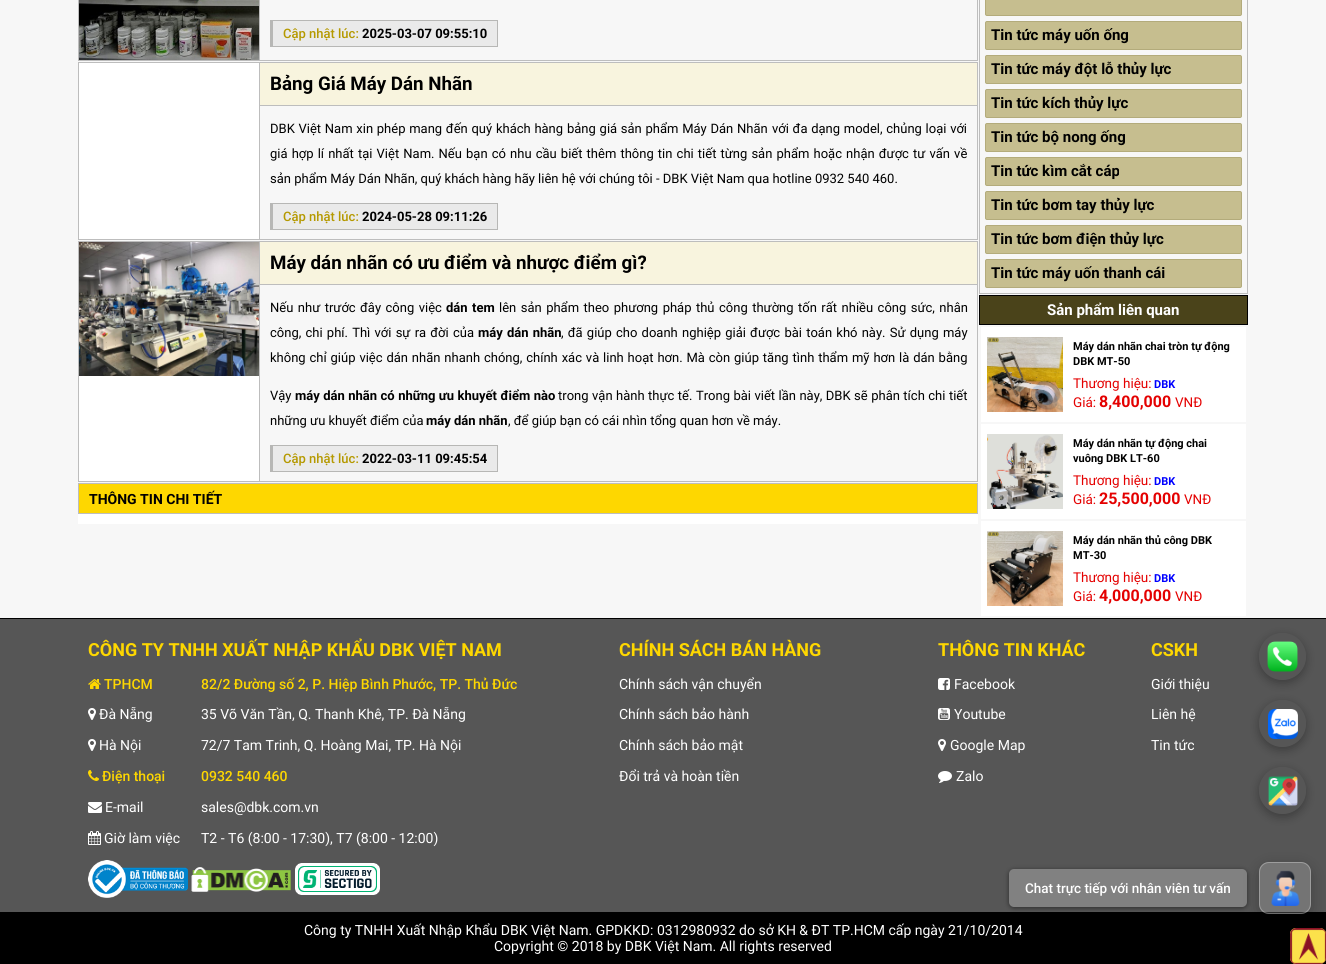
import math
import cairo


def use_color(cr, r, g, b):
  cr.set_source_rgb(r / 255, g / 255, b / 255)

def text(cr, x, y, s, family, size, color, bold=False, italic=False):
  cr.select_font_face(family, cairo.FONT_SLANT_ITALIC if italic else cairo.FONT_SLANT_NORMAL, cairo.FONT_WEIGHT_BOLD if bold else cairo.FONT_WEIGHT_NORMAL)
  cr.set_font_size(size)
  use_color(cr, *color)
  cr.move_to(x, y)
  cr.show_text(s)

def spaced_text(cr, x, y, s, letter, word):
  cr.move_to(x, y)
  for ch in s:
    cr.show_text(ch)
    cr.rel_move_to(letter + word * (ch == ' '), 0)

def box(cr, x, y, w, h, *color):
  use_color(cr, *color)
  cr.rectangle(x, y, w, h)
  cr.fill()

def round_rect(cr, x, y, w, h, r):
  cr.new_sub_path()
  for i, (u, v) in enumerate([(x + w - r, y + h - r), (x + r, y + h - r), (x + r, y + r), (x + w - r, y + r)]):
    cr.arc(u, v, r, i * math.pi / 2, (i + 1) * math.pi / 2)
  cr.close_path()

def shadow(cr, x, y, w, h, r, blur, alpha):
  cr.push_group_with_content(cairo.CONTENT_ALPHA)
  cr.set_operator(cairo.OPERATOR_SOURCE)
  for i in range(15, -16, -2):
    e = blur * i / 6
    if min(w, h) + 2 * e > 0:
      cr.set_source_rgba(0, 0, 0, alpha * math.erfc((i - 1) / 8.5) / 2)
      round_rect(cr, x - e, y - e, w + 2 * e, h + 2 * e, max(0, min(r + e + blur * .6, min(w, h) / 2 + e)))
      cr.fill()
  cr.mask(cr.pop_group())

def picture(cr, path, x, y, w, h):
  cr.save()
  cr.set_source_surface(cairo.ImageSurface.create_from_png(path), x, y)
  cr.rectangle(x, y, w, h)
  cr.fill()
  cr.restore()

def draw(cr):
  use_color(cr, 247, 247, 247)
  cr.paint()
  cr.rectangle(78.5, -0.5, 899, 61)
  use_color(cr, 189, 189, 189)
  cr.set_line_width(1)
  cr.stroke()
  picture(cr, "img_01.png", 79, 0, 180, 60)
  box(cr, 259, 0, 1, 60, 189, 189, 189)
  box(cr, 270, 46, 92, 1, 183, 183, 181)
  box(cr, 270, 20, 228, 1, 183, 183, 181)
  box(cr, 270, 20, 3, 27, 183, 183, 181)
  box(cr, 273, 21, 224, 25, 234, 234, 234)
  box(cr, 497, 20, 1, 27, 183, 183, 181)
  box(cr, 362, 46, 136, 1, 183, 183, 181)
  cr.rectangle(78.5, 62.5, 899, 177)
  use_color(cr, 189, 189, 189)
  cr.stroke()
  box(cr, 79, 63, 180, 176, 255, 255, 255)
  box(cr, 259, 63, 1, 176, 189, 189, 189)
  box(cr, 260, 63, 717, 42, 248, 244, 222)
  box(cr, 260, 105, 717, 1, 189, 189, 189)
  box(cr, 270, 229, 92, 1, 183, 183, 181)
  box(cr, 270, 203, 228, 1, 183, 183, 181)
  box(cr, 270, 203, 3, 27, 183, 183, 181)
  box(cr, 273, 204, 224, 25, 234, 234, 234)
  box(cr, 497, 203, 1, 27, 183, 183, 181)
  box(cr, 362, 229, 136, 1, 183, 183, 181)
  cr.rectangle(78.5, 241.5, 899, 240)
  use_color(cr, 189, 189, 189)
  cr.stroke()
  box(cr, 79, 376, 180, 105, 255, 255, 255)
  picture(cr, "img_02.png", 79, 242, 180, 134)
  box(cr, 259, 242, 1, 239, 189, 189, 189)
  box(cr, 260, 242, 717, 42, 248, 244, 222)
  box(cr, 260, 284, 717, 1, 189, 189, 189)
  box(cr, 270, 471, 92, 1, 183, 183, 181)
  box(cr, 270, 445, 228, 1, 183, 183, 181)
  box(cr, 270, 445, 3, 27, 183, 183, 181)
  box(cr, 273, 446, 224, 25, 234, 234, 234)
  box(cr, 497, 445, 1, 27, 183, 183, 181)
  box(cr, 362, 471, 136, 1, 183, 183, 181)
  use_color(cr, 254, 215, 0)
  cr.rectangle(78.5, 483.5, 899, 30)
  cr.fill_preserve()
  use_color(cr, 189, 189, 189)
  cr.stroke()
  box(cr, 78, 514, 900, 10, 255, 255, 255)
  cr.rectangle(979.5, -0.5, 268, 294)
  use_color(cr, 189, 189, 189)
  cr.stroke()
  use_color(cr, 198, 190, 143)
  round_rect(cr, 985.5, -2.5, 256, 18, 1.5)
  cr.fill_preserve()
  use_color(cr, 179, 171, 123)
  cr.stroke()
  use_color(cr, 198, 190, 143)
  round_rect(cr, 985.5, 21.5, 256, 28, 1.5)
  cr.fill_preserve()
  use_color(cr, 179, 171, 123)
  cr.stroke()
  use_color(cr, 198, 190, 143)
  round_rect(cr, 985.5, 55.5, 256, 28, 1.5)
  cr.fill_preserve()
  use_color(cr, 179, 171, 123)
  cr.stroke()
  use_color(cr, 198, 190, 143)
  round_rect(cr, 985.5, 89.5, 256, 28, 1.5)
  cr.fill_preserve()
  use_color(cr, 179, 171, 123)
  cr.stroke()
  use_color(cr, 198, 190, 143)
  round_rect(cr, 985.5, 123.5, 256, 28, 1.5)
  cr.fill_preserve()
  use_color(cr, 179, 171, 123)
  cr.stroke()
  use_color(cr, 198, 190, 143)
  round_rect(cr, 985.5, 157.5, 256, 28, 1.5)
  cr.fill_preserve()
  use_color(cr, 179, 171, 123)
  cr.stroke()
  use_color(cr, 198, 190, 143)
  round_rect(cr, 985.5, 191.5, 256, 28, 1.5)
  cr.fill_preserve()
  use_color(cr, 179, 171, 123)
  cr.stroke()
  use_color(cr, 198, 190, 143)
  round_rect(cr, 985.5, 225.5, 256, 28, 1.5)
  cr.fill_preserve()
  use_color(cr, 179, 171, 123)
  cr.stroke()
  use_color(cr, 198, 190, 143)
  round_rect(cr, 985.5, 259.5, 256, 28, 1.5)
  cr.fill_preserve()
  use_color(cr, 179, 171, 123)
  cr.stroke()
  use_color(cr, 74, 67, 26)
  cr.rectangle(979.5, 295.5, 268, 29)
  cr.fill_preserve()
  use_color(cr, 0, 0, 0)
  cr.stroke()
  box(cr, 981, 327, 265, 95, 255, 255, 255)
  picture(cr, "img_03.png", 987, 337, 76, 75)
  box(cr, 981, 424, 265, 95, 255, 255, 255)
  picture(cr, "img_04.png", 987, 434, 76, 75)
  box(cr, 981, 521, 265, 95, 255, 255, 255)
  picture(cr, "img_05.png", 987, 531, 76, 75)
  box(cr, 0, 619, 1326, 293, 86, 86, 86)
  box(cr, 0, 618, 1326, 1, 0, 0, 0)
  picture(cr, "img_06.png", 88, 679, 13, 10)
  picture(cr, "img_07.png", 88, 708, 8, 12)
  picture(cr, "img_07.png", 88, 739, 8, 12)
  picture(cr, "img_08.png", 88, 770, 11, 11)
  picture(cr, "img_09.png", 88, 802, 14, 11)
  picture(cr, "img_10.png", 88, 831, 13, 14)
  picture(cr, "img_11.png", 88, 860, 100, 38)
  picture(cr, "img_12.png", 191, 867, 100, 25)
  picture(cr, "img_13.png", 295, 863, 85, 32)
  picture(cr, "img_14.png", 938, 678, 12, 12)
  picture(cr, "img_15.png", 938, 708, 12, 12)
  picture(cr, "img_07.png", 938, 739, 8, 12)
  picture(cr, "img_16.png", 938, 771, 14, 12)
  cr.save()
  cr.set_fill_rule(cairo.FILL_RULE_EVEN_ODD)
  cr.new_path()
  cr.move_to(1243, 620)
  cr.line_to(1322, 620)
  cr.line_to(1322, 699)
  cr.line_to(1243, 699)
  cr.close_path()
  cr.move_to(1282.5, 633)
  cr.curve_to(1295.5, 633, 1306, 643.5, 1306, 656.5)
  cr.curve_to(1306, 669.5, 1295.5, 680, 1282.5, 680)
  cr.curve_to(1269.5, 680, 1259, 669.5, 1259, 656.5)
  cr.curve_to(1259, 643.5, 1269.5, 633, 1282.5, 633)
  cr.close_path()
  cr.clip()
  use_color(cr, 0, 0, 0)
  shadow(cr, 1259, 636, 47, 47, 23.5, 5, 0.3)
  cr.restore()
  picture(cr, "img_17.png", 1267, 641, 31, 31)
  cr.save()
  cr.set_fill_rule(cairo.FILL_RULE_EVEN_ODD)
  cr.new_path()
  cr.move_to(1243, 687)
  cr.line_to(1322, 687)
  cr.line_to(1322, 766)
  cr.line_to(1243, 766)
  cr.close_path()
  cr.move_to(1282.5, 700)
  cr.curve_to(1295.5, 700, 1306, 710.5, 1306, 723.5)
  cr.curve_to(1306, 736.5, 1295.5, 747, 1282.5, 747)
  cr.curve_to(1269.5, 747, 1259, 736.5, 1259, 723.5)
  cr.curve_to(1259, 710.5, 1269.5, 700, 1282.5, 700)
  cr.close_path()
  cr.clip()
  use_color(cr, 0, 0, 0)
  shadow(cr, 1259, 703, 47, 47, 23.5, 5, 0.3)
  cr.restore()
  picture(cr, "img_18.png", 1268, 709, 30, 30)
  cr.save()
  cr.set_fill_rule(cairo.FILL_RULE_EVEN_ODD)
  cr.new_path()
  cr.move_to(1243, 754)
  cr.line_to(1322, 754)
  cr.line_to(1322, 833)
  cr.line_to(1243, 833)
  cr.close_path()
  cr.move_to(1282.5, 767)
  cr.curve_to(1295.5, 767, 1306, 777.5, 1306, 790.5)
  cr.curve_to(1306, 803.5, 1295.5, 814, 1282.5, 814)
  cr.curve_to(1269.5, 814, 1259, 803.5, 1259, 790.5)
  cr.curve_to(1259, 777.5, 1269.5, 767, 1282.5, 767)
  cr.close_path()
  cr.clip()
  use_color(cr, 0, 0, 0)
  shadow(cr, 1259, 770, 47, 47, 23.5, 5, 0.3)
  cr.restore()
  picture(cr, "img_19.png", 1268, 776, 30, 30)
  box(cr, 0, 912, 1326, 52, 0, 0, 0)
  use_color(cr, 0, 0, 0)
  shadow(cr, 1009, 870, 238, 38, 5, 2.5, 0.5)
  use_color(cr, 129, 129, 129)
  round_rect(cr, 1009, 869, 238, 38, 5)
  cr.fill()
  use_color(cr, 252, 225, 75)
  round_rect(cr, 1290, 928, 36, 36, 6)
  cr.fill()
  picture(cr, "img_21.png", 1290, 928, 36, 36)
  cr.save()
  cr.set_fill_rule(cairo.FILL_RULE_EVEN_ODD)
  cr.new_path()
  cr.move_to(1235, 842)
  cr.line_to(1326, 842)
  cr.line_to(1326, 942)
  cr.line_to(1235, 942)
  cr.close_path()
  cr.move_to(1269, 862)
  cr.line_to(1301, 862)
  cr.curve_to(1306.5, 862, 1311, 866.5, 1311, 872)
  cr.line_to(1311, 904)
  cr.curve_to(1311, 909.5, 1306.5, 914, 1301, 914)
  cr.line_to(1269, 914)
  cr.curve_to(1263.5, 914, 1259, 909.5, 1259, 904)
  cr.line_to(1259, 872)
  cr.curve_to(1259, 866.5, 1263.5, 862, 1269, 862)
  cr.close_path()
  cr.clip()
  use_color(cr, 0, 0, 0)
  shadow(cr, 1259, 866, 52, 52, 10, 7.5, 0.25)
  cr.restore()
  cr.set_source_rgba(1, 1, 1, 0.18)
  round_rect(cr, 1259, 862, 52, 52, 10)
  cr.fill()
  round_rect(cr, 1259.5, 862.5, 51, 51, 9.5)
  cr.set_source_rgba(1, 1, 1, 0.3)
  cr.stroke()
  picture(cr, "img_20.png", 1271, 870, 29, 36)
  text(cr, 283, 38, "Cập nhật lúc:", "Roboto Medium", 13, (181, 153, 0))
  text(cr, 362, 38, "2025-03-07 09:55:10", "Roboto", 13, (0, 0, 0), bold=True)
  text(cr, 270, 90, "Bảng Giá Máy Dán Nhãn", "Roboto", 18.75, (0, 0, 0), bold=True)
  cr.select_font_face("Roboto")
  cr.set_font_size(13)
  spaced_text(cr, 270, 133, "DBK Việt Nam xin phép mang đến quý khách hàng", 0, 0.5)
  spaced_text(cr, 567, 133, "bảng giá sản phẩm Máy Dán Nhãn", 0, 0.5)
  spaced_text(cr, 772, 133, "với đa dạng model, chủng loại với", 0, 0.5)
  spaced_text(cr, 270, 158, "giá hợp lí nhất tại Việt Nam. Nếu bạn có nhu cầu biết thêm thông tin chi tiết từng sản phẩm hoặc nhận được tư vấn về", 0, 0.9)
  text(cr, 270, 183, "sản phẩm Máy Dán Nhãn, quý khách hàng hãy liên hệ với chúng tôi - DBK Việt Nam qua hotline 0932 540 460.", "Roboto", 13, (0, 0, 0))
  text(cr, 283, 221, "Cập nhật lúc:", "Roboto Medium", 13, (181, 153, 0))
  text(cr, 362, 221, "2024-05-28 09:11:26", "Roboto", 13, (0, 0, 0), bold=True)
  text(cr, 270, 269, "Máy dán nhãn có ưu điểm và nhược điểm gì?", "Roboto", 18.75, (0, 0, 0), bold=True)
  cr.select_font_face("Roboto")
  cr.set_font_size(13)
  spaced_text(cr, 270, 312, "Nếu như trước đây công việc", 0, 1.25)
  cr.select_font_face("Roboto", cairo.FONT_SLANT_NORMAL, cairo.FONT_WEIGHT_BOLD)
  spaced_text(cr, 446, 312, "dán tem", 0, 1.25)
  cr.select_font_face("Roboto")
  spaced_text(cr, 499, 312, "lên sản phẩm theo phương pháp thủ công thường tốn rất nhiều công sức, nhân", 0, 1.25)
  spaced_text(cr, 270, 337, "công, chi phí. Thì với sự ra đời của", 0, 1)
  cr.select_font_face("Roboto", cairo.FONT_SLANT_NORMAL, cairo.FONT_WEIGHT_BOLD)
  spaced_text(cr, 478, 337, "máy dán nhãn", 0, 1)
  cr.select_font_face("Roboto")
  spaced_text(cr, 561, 337, ", đã giúp cho doanh nghiệp giải được bài toán khó này. Sử dụng máy", 0, 1)
  spaced_text(cr, 270, 362, "không chỉ giúp việc dán nhãn nhanh chóng, chính xác và linh hoạt hơn. Mà còn giúp tăng tình thẩm mỹ hơn là dán bằng", 0, 0.65)
  text(cr, 270, 400, "Vậy", "Roboto", 13, (0, 0, 0))
  cr.select_font_face("Roboto", cairo.FONT_SLANT_NORMAL, cairo.FONT_WEIGHT_BOLD)
  spaced_text(cr, 295, 400, "máy dán nhãn có những ưu khuyết điểm nào", 0, 0.25)
  cr.select_font_face("Roboto")
  spaced_text(cr, 558, 400, "trong vận hành thực tế. Trong bài viết lần này, DBK sẽ phân tích chi tiết", 0, 0.25)
  text(cr, 270, 425, "những ưu khuyết điểm của", "Roboto", 13, (0, 0, 0))
  text(cr, 426, 425, "máy dán nhãn", "Roboto", 13, (0, 0, 0), bold=True)
  text(cr, 508, 425, ", để giúp bạn có cái nhìn tổng quan hơn về máy.", "Roboto", 13, (0, 0, 0))
  text(cr, 283, 463, "Cập nhật lúc:", "Roboto Medium", 13, (181, 153, 0))
  text(cr, 362, 463, "2022-03-11 09:45:54", "Roboto", 13, (0, 0, 0), bold=True)
  text(cr, 89, 504, "THÔNG TIN CHI TIẾT", "Roboto", 14, (0, 0, 0), bold=True)
  text(cr, 991, 40, "Tin tức máy uốn ống", "Roboto", 15, (0, 0, 0), bold=True)
  text(cr, 991, 74, "Tin tức máy đột lỗ thủy lực", "Roboto", 15, (0, 0, 0), bold=True)
  text(cr, 991, 108, "Tin tức kích thủy lực", "Roboto", 15, (0, 0, 0), bold=True)
  text(cr, 991, 142, "Tin tức bộ nong ống", "Roboto", 15, (0, 0, 0), bold=True)
  text(cr, 991, 176, "Tin tức kìm cắt cáp", "Roboto", 15, (0, 0, 0), bold=True)
  text(cr, 991, 210, "Tin tức bơm tay thủy lực", "Roboto", 15, (0, 0, 0), bold=True)
  text(cr, 991, 244, "Tin tức bơm điện thủy lực", "Roboto", 15, (0, 0, 0), bold=True)
  text(cr, 991, 278, "Tin tức máy uốn thanh cái", "Roboto", 15, (0, 0, 0), bold=True)
  text(cr, 1047, 315, "Sản phẩm liên quan", "Roboto", 15, (255, 255, 255), bold=True)
  text(cr, 1073, 350, "Máy dán nhãn chai tròn tự động", "Roboto", 11, (0, 0, 0), bold=True)
  text(cr, 1073, 365, "DBK MT-50", "Roboto", 11, (0, 0, 0), bold=True)
  text(cr, 1073, 388, "Thương hiệu:", "Roboto", 13.5, (228, 0, 0))
  text(cr, 1154, 388, "DBK", "Roboto", 11, (0, 0, 255), bold=True)
  text(cr, 1073, 407, "Giá:", "Roboto", 13.5, (228, 0, 0))
  text(cr, 1099, 407, "8,400,000", "Roboto", 16, (228, 0, 0), bold=True)
  text(cr, 1175, 407, "VNĐ", "Roboto", 13.5, (228, 0, 0))
  text(cr, 1073, 447, "Máy dán nhãn tự động chai", "Roboto", 11, (0, 0, 0), bold=True)
  text(cr, 1073, 462, "vuông DBK LT-60", "Roboto", 11, (0, 0, 0), bold=True)
  text(cr, 1073, 485, "Thương hiệu:", "Roboto", 13.5, (228, 0, 0))
  text(cr, 1154, 485, "DBK", "Roboto", 11, (0, 0, 255), bold=True)
  text(cr, 1073, 504, "Giá:", "Roboto", 13.5, (228, 0, 0))
  text(cr, 1099, 504, "25,500,000", "Roboto", 16, (228, 0, 0), bold=True)
  text(cr, 1184, 504, "VNĐ", "Roboto", 13.5, (228, 0, 0))
  text(cr, 1073, 544, "Máy dán nhãn thủ công DBK", "Roboto", 11, (0, 0, 0), bold=True)
  text(cr, 1073, 559, "MT-30", "Roboto", 11, (0, 0, 0), bold=True)
  text(cr, 1073, 582, "Thương hiệu:", "Roboto", 13.5, (228, 0, 0))
  text(cr, 1154, 582, "DBK", "Roboto", 11, (0, 0, 255), bold=True)
  text(cr, 1073, 601, "Giá:", "Roboto", 13.5, (228, 0, 0))
  text(cr, 1099, 601, "4,000,000", "Roboto", 16, (228, 0, 0), bold=True)
  text(cr, 1175, 601, "VNĐ", "Roboto", 13.5, (228, 0, 0))
  text(cr, 88, 656, "CÔNG TY TNHH XUẤT NHẬP KHẨU DBK VIỆT NAM", "Roboto", 18, (254, 215, 0), bold=True)
  text(cr, 104, 689, "TPHCM", "Roboto Medium", 14, (254, 215, 0))
  text(cr, 201, 689, "82/2 Đường số 2, P. Hiệp Bình Phước, TP. Thủ Đức", "Roboto Medium", 14, (254, 215, 0))
  text(cr, 99, 719, "Đà Nẵng", "Roboto", 14, (255, 255, 255))
  text(cr, 201, 719, "35 Võ Văn Tần, Q. Thanh Khê, TP. Đà Nẵng", "Roboto", 14, (255, 255, 255))
  text(cr, 99, 750, "Hà Nội", "Roboto", 14, (255, 255, 255))
  text(cr, 201, 750, "72/7 Tam Trinh, Q. Hoàng Mai, TP. Hà Nội", "Roboto", 14, (255, 255, 255))
  text(cr, 102, 781, "Điện thoại", "Roboto Medium", 14, (254, 215, 0))
  text(cr, 201, 781, "0932 540 460", "Roboto Medium", 14, (254, 215, 0))
  text(cr, 105, 812, "E-mail", "Roboto", 14, (255, 255, 255))
  text(cr, 201, 812, "sales@dbk.com.vn", "Roboto", 14, (255, 255, 255))
  text(cr, 104, 843, "Giờ làm việc", "Roboto", 14, (255, 255, 255))
  text(cr, 201, 843, "T2 - T6 (8:00 - 17:30), T7 (8:00 - 12:00)", "Roboto", 14, (255, 255, 255))
  text(cr, 619, 656, "CHÍNH SÁCH BÁN HÀNG", "Roboto", 18, (254, 215, 0), bold=True)
  text(cr, 619, 689, "Chính sách vận chuyển", "Roboto", 14, (255, 255, 255))
  text(cr, 619, 719, "Chính sách bảo hành", "Roboto", 14, (255, 255, 255))
  text(cr, 619, 750, "Chính sách bảo mật", "Roboto", 14, (255, 255, 255))
  text(cr, 619, 781, "Đổi trả và hoàn tiền", "Roboto", 14, (255, 255, 255))
  text(cr, 938, 656, "THÔNG TIN KHÁC", "Roboto", 18, (254, 215, 0), bold=True)
  text(cr, 954, 689, "Facebook", "Roboto", 14, (255, 255, 255))
  text(cr, 954, 719, "Youtube", "Roboto", 14, (255, 255, 255))
  text(cr, 950, 750, "Google Map", "Roboto", 14, (255, 255, 255))
  text(cr, 956, 781, "Zalo", "Roboto", 14, (255, 255, 255))
  text(cr, 1151, 656, "CSKH", "Roboto", 18, (254, 215, 0), bold=True)
  text(cr, 1151, 689, "Giới thiệu", "Roboto", 14, (255, 255, 255))
  text(cr, 1151, 719, "Liên hệ", "Roboto", 14, (255, 255, 255))
  text(cr, 1151, 750, "Tin tức", "Roboto", 14, (255, 255, 255))
  text(cr, 1025, 893, "Chat trực tiếp với nhân viên tư vấn", "Roboto Medium", 13.5, (255, 255, 255))
  text(cr, 304, 935, "Công ty TNHH Xuất Nhập Khẩu DBK Việt Nam. GPDKKD: 0312980932 do sở KH & ĐT TP.HCM cấp ngày 21/10/2014", "Roboto", 14, (255, 255, 255))
  text(cr, 494, 951, "Copyright © 2018 by DBK Việt Nam. All rights reserved", "Roboto", 14, (255, 255, 255))


surface = cairo.ImageSurface(cairo.FORMAT_RGB24, 1326, 964)
cr = cairo.Context(surface)
options = cairo.FontOptions()
options.set_hint_metrics(cairo.HINT_METRICS_OFF)
options.set_hint_style(cairo.HINT_STYLE_NONE)
cr.set_font_options(options)
cr.set_miter_limit(4)
draw(cr)
surface.write_to_png("out.png")
